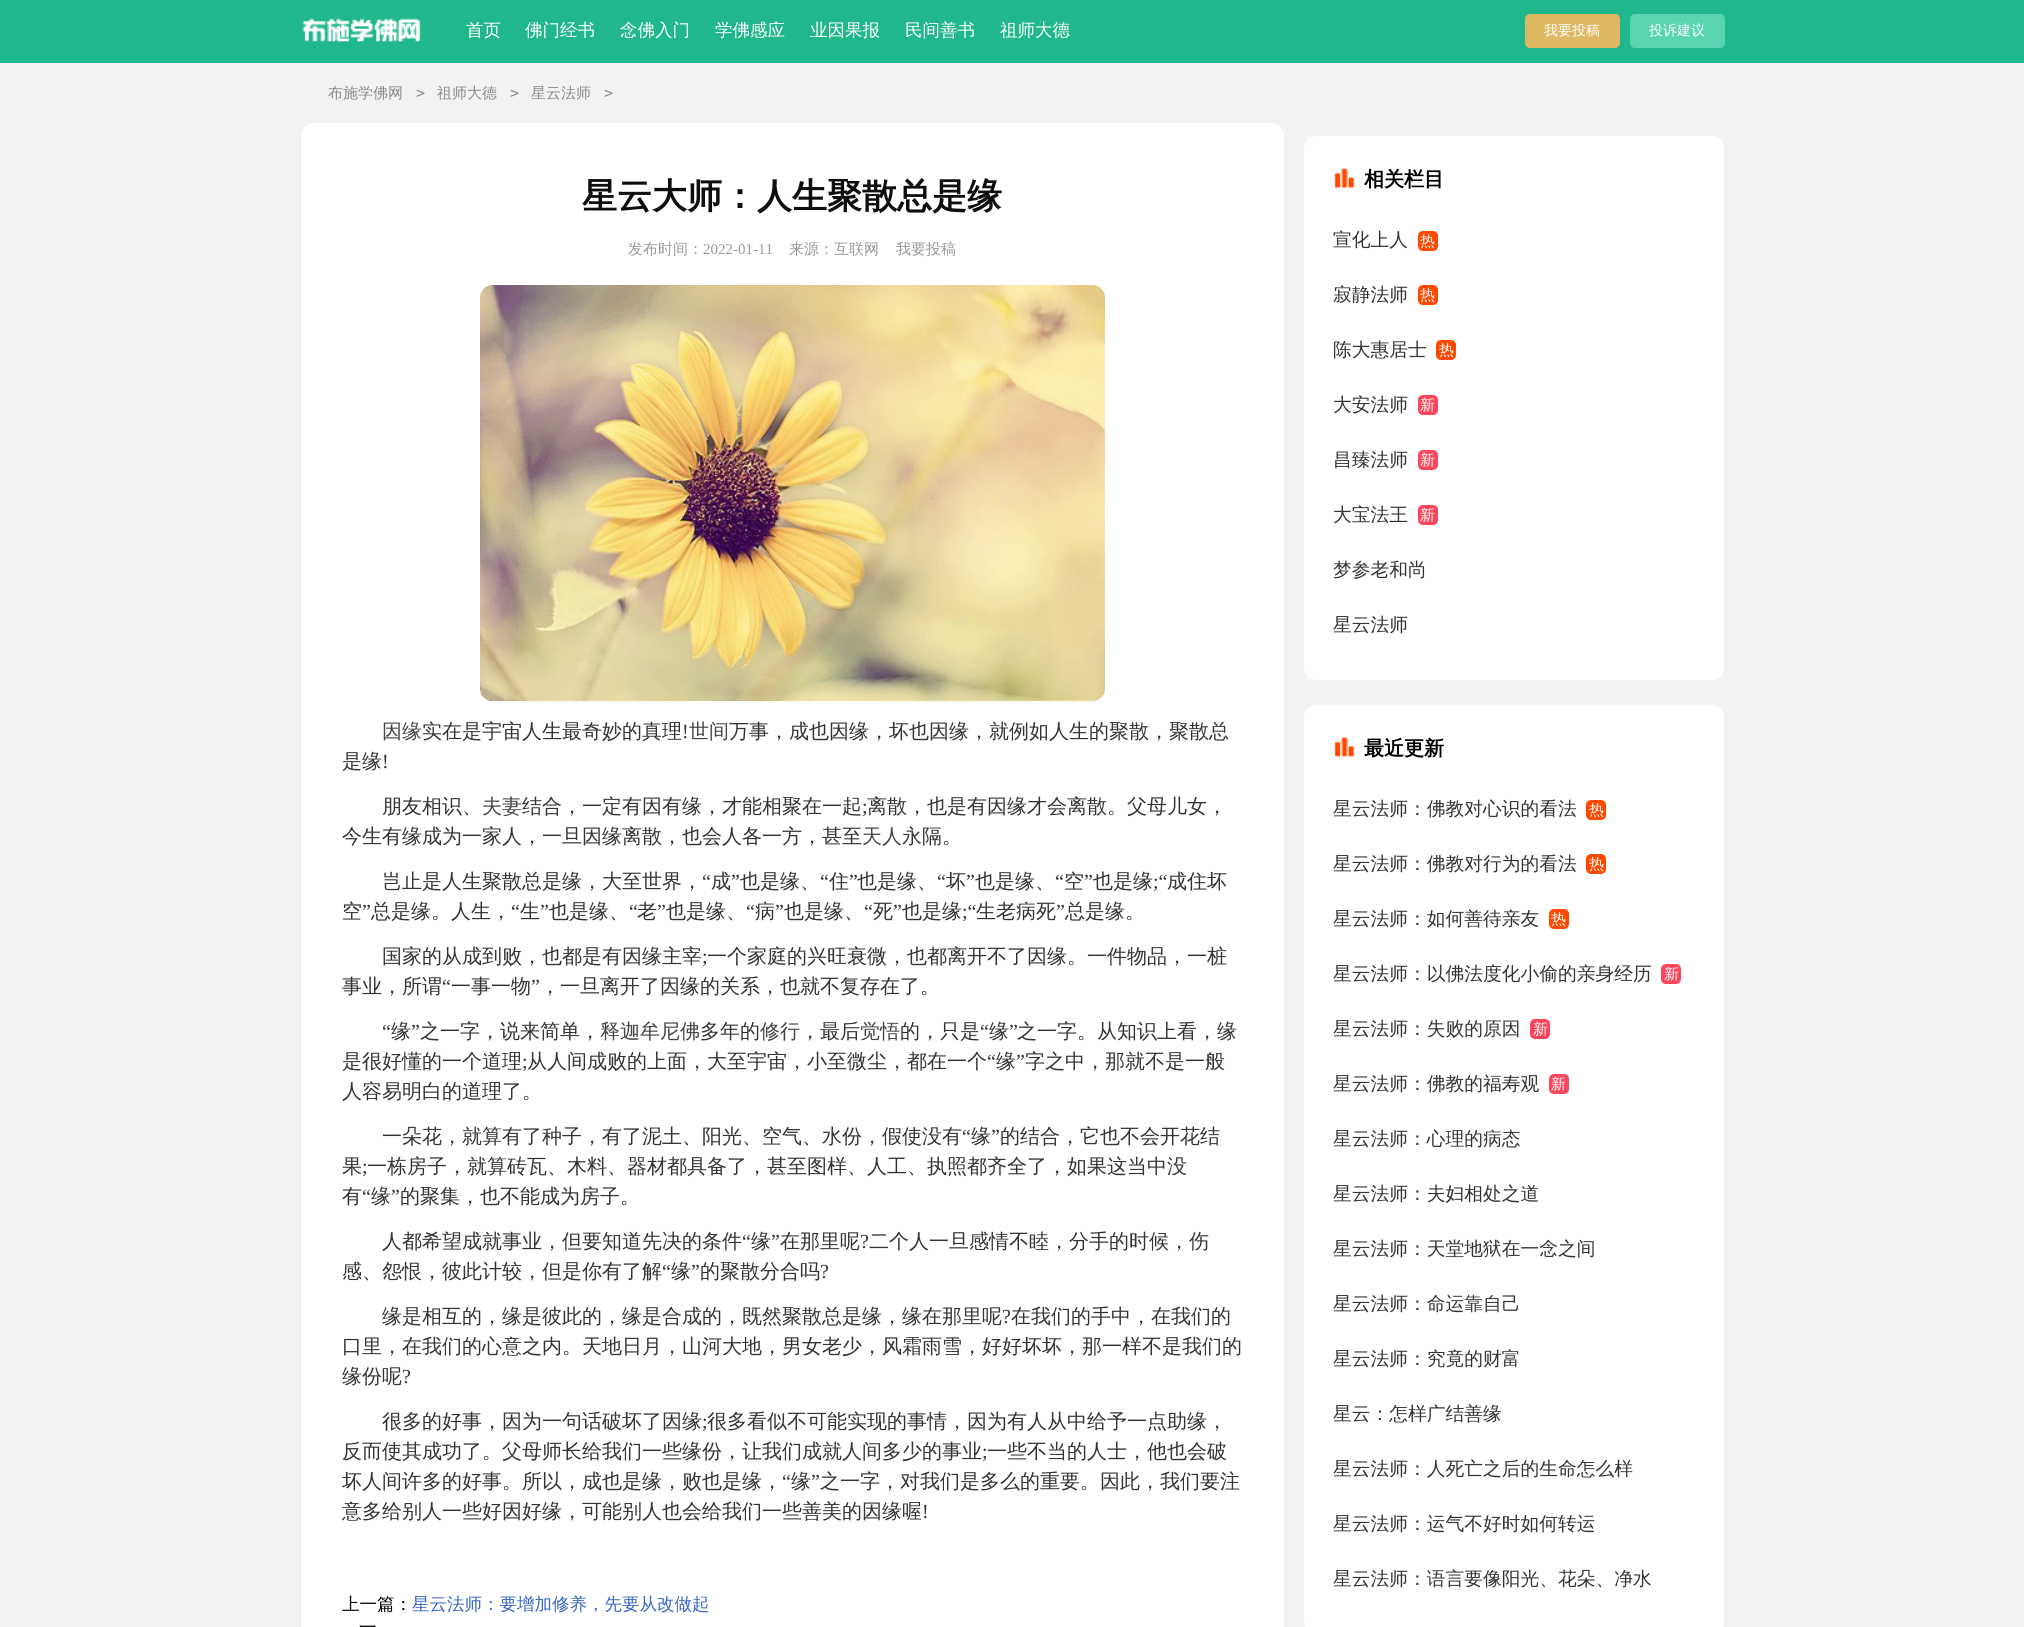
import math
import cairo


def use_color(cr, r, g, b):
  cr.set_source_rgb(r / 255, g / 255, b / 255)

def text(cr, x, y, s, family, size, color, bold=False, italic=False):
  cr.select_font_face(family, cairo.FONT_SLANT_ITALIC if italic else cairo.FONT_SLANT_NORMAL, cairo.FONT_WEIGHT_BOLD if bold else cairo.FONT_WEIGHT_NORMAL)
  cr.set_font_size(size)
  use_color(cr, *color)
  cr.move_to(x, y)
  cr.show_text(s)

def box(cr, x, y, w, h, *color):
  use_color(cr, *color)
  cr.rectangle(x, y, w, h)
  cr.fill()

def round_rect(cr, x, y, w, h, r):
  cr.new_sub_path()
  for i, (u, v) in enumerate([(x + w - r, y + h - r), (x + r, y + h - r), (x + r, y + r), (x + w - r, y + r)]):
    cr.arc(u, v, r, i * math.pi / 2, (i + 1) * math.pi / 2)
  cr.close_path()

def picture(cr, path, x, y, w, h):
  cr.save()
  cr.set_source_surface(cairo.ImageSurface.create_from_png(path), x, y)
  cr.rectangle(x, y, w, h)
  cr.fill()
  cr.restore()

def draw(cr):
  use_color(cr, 242, 242, 242)
  cr.paint()
  box(cr, 0, 0, 2024, 63, 32, 183, 140)
  picture(cr, "img_01.png", 302, 18, 119, 24)
  use_color(cr, 223, 184, 99)
  round_rect(cr, 1525, 14, 95, 34, 5)
  cr.fill()
  use_color(cr, 88, 212, 177)
  round_rect(cr, 1630, 14, 95, 34, 5)
  cr.fill()
  use_color(cr, 255, 255, 255)
  round_rect(cr, 301, 123, 983, 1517, 13)
  cr.fill()
  picture(cr, "img_02.png", 480, 285, 625, 417)
  round_rect(cr, 1303.5, 135.5, 421, 545, 12.5)
  cr.fill_preserve()
  use_color(cr, 243, 243, 243)
  cr.set_line_width(1)
  cr.stroke()
  picture(cr, "img_03.png", 1334, 168, 20, 20)
  use_color(cr, 255, 72, 0)
  round_rect(cr, 1418, 231, 20, 20, 5)
  cr.fill()
  round_rect(cr, 1418, 285, 20, 20, 5)
  cr.fill()
  round_rect(cr, 1436, 340, 20, 20, 5)
  cr.fill()
  use_color(cr, 255, 69, 91)
  round_rect(cr, 1418, 395, 20, 20, 5)
  cr.fill()
  round_rect(cr, 1418, 450, 20, 20, 5)
  cr.fill()
  round_rect(cr, 1418, 505, 20, 20, 5)
  cr.fill()
  use_color(cr, 255, 255, 255)
  round_rect(cr, 1303.5, 704.5, 421, 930, 12.5)
  cr.fill_preserve()
  use_color(cr, 243, 243, 243)
  cr.stroke()
  picture(cr, "img_04.png", 1334, 737, 20, 20)
  use_color(cr, 255, 72, 0)
  round_rect(cr, 1586, 800, 20, 20, 5)
  cr.fill()
  round_rect(cr, 1586, 854, 20, 20, 5)
  cr.fill()
  round_rect(cr, 1549, 909, 20, 20, 5)
  cr.fill()
  use_color(cr, 255, 69, 91)
  round_rect(cr, 1661, 964, 20, 20, 5)
  cr.fill()
  round_rect(cr, 1530, 1019, 20, 20, 5)
  cr.fill()
  round_rect(cr, 1549, 1074, 20, 20, 5)
  cr.fill()
  text(cr, 466, 36, "首页", "WenQuanYi Zen Hei Medium", 17.5, (255, 255, 255))
  text(cr, 525, 36, "佛门经书", "WenQuanYi Zen Hei Medium", 17.5, (255, 255, 255))
  text(cr, 620, 36, "念佛入门", "WenQuanYi Zen Hei Medium", 17.5, (255, 255, 255))
  text(cr, 715, 36, "学佛感应", "WenQuanYi Zen Hei Medium", 17.5, (255, 255, 255))
  text(cr, 810, 36, "业因果报", "WenQuanYi Zen Hei Medium", 17.5, (255, 255, 255))
  text(cr, 905, 36, "民间善书", "WenQuanYi Zen Hei Medium", 17.5, (255, 255, 255))
  text(cr, 1000, 36, "祖师大德", "WenQuanYi Zen Hei Medium", 17.5, (255, 255, 255))
  text(cr, 1544, 35, "我要投稿", "WenQuanYi Zen Hei Medium", 14, (255, 255, 255))
  text(cr, 1649, 35, "投诉建议", "WenQuanYi Zen Hei Medium", 14, (255, 255, 255))
  text(cr, 328, 98, "布施学佛网", "WenQuanYi Zen Hei Medium", 15, (138, 138, 138))
  text(cr, 416, 98, ">", "DejaVu Sans Mono", 15, (138, 138, 138))
  text(cr, 437, 98, "祖师大德", "WenQuanYi Zen Hei Medium", 15, (138, 138, 138))
  text(cr, 510, 98, ">", "DejaVu Sans Mono", 15, (138, 138, 138))
  text(cr, 531, 98, "星云法师", "WenQuanYi Zen Hei Medium", 15, (138, 138, 138))
  text(cr, 604, 98, ">", "DejaVu Sans Mono", 15, (138, 138, 138))
  text(cr, 582, 208, "星云大师：人生聚散总是缘", "WenQuanYi Zen Hei", 35, (14, 14, 14), bold=True)
  text(cr, 628, 254, "发布时间：", "WenQuanYi Zen Hei Medium", 15, (153, 153, 153))
  text(cr, 703, 254, "2022-01-11", "Liberation Serif", 15, (153, 153, 153))
  text(cr, 789, 254, "来源：互联网", "WenQuanYi Zen Hei Medium", 15, (153, 153, 153))
  text(cr, 896, 254, "我要投稿", "WenQuanYi Zen Hei Medium", 15, (153, 153, 153))
  text(cr, 382, 738, "因缘", "WenQuanYi Zen Hei Medium", 20, (68, 68, 68))
  text(cr, 422, 738, "实在是宇宙人生最奇妙的真理", "WenQuanYi Zen Hei Medium", 20, (51, 51, 51))
  text(cr, 682, 738, "!", "Liberation Serif", 20, (51, 51, 51))
  text(cr, 689, 738, "世间", "WenQuanYi Zen Hei Medium", 20, (68, 68, 68))
  text(cr, 729, 738, "万事，成也因缘，坏也因缘，就例如人生的聚散，聚散总", "WenQuanYi Zen Hei Medium", 20, (51, 51, 51))
  text(cr, 342, 768, "是缘", "WenQuanYi Zen Hei Medium", 20, (51, 51, 51))
  text(cr, 382, 768, "!", "Liberation Serif", 20, (51, 51, 51))
  text(cr, 382, 813, "朋友相识、", "WenQuanYi Zen Hei Medium", 20, (51, 51, 51))
  text(cr, 482, 813, "夫妻", "WenQuanYi Zen Hei Medium", 20, (68, 68, 68))
  text(cr, 522, 813, "结合，一定有因有缘，才能相聚在一起", "WenQuanYi Zen Hei Medium", 20, (51, 51, 51))
  text(cr, 862, 813, ";", "Liberation Serif", 20, (51, 51, 51))
  text(cr, 867, 813, "离散，也是有因缘才会离散。父母儿女，", "WenQuanYi Zen Hei Medium", 20, (51, 51, 51))
  text(cr, 342, 843, "今生有缘成为一家人，一旦因缘离散，也会人各一方，甚至", "WenQuanYi Zen Hei Medium", 20, (51, 51, 51))
  text(cr, 862, 843, "天人", "WenQuanYi Zen Hei Medium", 20, (68, 68, 68))
  text(cr, 902, 843, "永隔。", "WenQuanYi Zen Hei Medium", 20, (51, 51, 51))
  text(cr, 382, 888, "岂止是人生聚散总是缘，大至世界，", "WenQuanYi Zen Hei Medium", 20, (51, 51, 51))
  text(cr, 702, 888, "“", "Liberation Serif", 20, (51, 51, 51))
  text(cr, 711, 888, "成", "WenQuanYi Zen Hei Medium", 20, (51, 51, 51))
  text(cr, 731, 888, "”", "Liberation Serif", 20, (51, 51, 51))
  text(cr, 740, 888, "也是缘、", "WenQuanYi Zen Hei Medium", 20, (51, 51, 51))
  text(cr, 820, 888, "“", "Liberation Serif", 20, (51, 51, 51))
  text(cr, 829, 888, "住", "WenQuanYi Zen Hei Medium", 20, (51, 51, 51))
  text(cr, 849, 888, "”", "Liberation Serif", 20, (51, 51, 51))
  text(cr, 857, 888, "也是缘、", "WenQuanYi Zen Hei Medium", 20, (51, 51, 51))
  text(cr, 937, 888, "“", "Liberation Serif", 20, (51, 51, 51))
  text(cr, 946, 888, "坏", "WenQuanYi Zen Hei Medium", 20, (51, 51, 51))
  text(cr, 966, 888, "”", "Liberation Serif", 20, (51, 51, 51))
  text(cr, 975, 888, "也是缘、", "WenQuanYi Zen Hei Medium", 20, (51, 51, 51))
  text(cr, 1055, 888, "“", "Liberation Serif", 20, (51, 51, 51))
  text(cr, 1064, 888, "空", "WenQuanYi Zen Hei Medium", 20, (51, 51, 51))
  text(cr, 1084, 888, "”", "Liberation Serif", 20, (51, 51, 51))
  text(cr, 1093, 888, "也是缘", "WenQuanYi Zen Hei Medium", 20, (51, 51, 51))
  text(cr, 1153, 888, ";“", "Liberation Serif", 20, (51, 51, 51))
  text(cr, 1167, 888, "成住坏", "WenQuanYi Zen Hei Medium", 20, (51, 51, 51))
  text(cr, 342, 918, "空", "WenQuanYi Zen Hei Medium", 20, (51, 51, 51))
  text(cr, 362, 918, "”", "Liberation Serif", 20, (51, 51, 51))
  text(cr, 371, 918, "总是缘。人生，", "WenQuanYi Zen Hei Medium", 20, (51, 51, 51))
  text(cr, 511, 918, "“", "Liberation Serif", 20, (51, 51, 51))
  text(cr, 520, 918, "生", "WenQuanYi Zen Hei Medium", 20, (51, 51, 51))
  text(cr, 540, 918, "”", "Liberation Serif", 20, (51, 51, 51))
  text(cr, 549, 918, "也是缘、", "WenQuanYi Zen Hei Medium", 20, (51, 51, 51))
  text(cr, 629, 918, "“", "Liberation Serif", 20, (51, 51, 51))
  text(cr, 637, 918, "老", "WenQuanYi Zen Hei Medium", 20, (51, 51, 51))
  text(cr, 657, 918, "”", "Liberation Serif", 20, (51, 51, 51))
  text(cr, 666, 918, "也是缘、", "WenQuanYi Zen Hei Medium", 20, (51, 51, 51))
  text(cr, 746, 918, "“", "Liberation Serif", 20, (51, 51, 51))
  text(cr, 755, 918, "病", "WenQuanYi Zen Hei Medium", 20, (51, 51, 51))
  text(cr, 775, 918, "”", "Liberation Serif", 20, (51, 51, 51))
  text(cr, 784, 918, "也是缘、", "WenQuanYi Zen Hei Medium", 20, (51, 51, 51))
  text(cr, 864, 918, "“", "Liberation Serif", 20, (51, 51, 51))
  text(cr, 873, 918, "死", "WenQuanYi Zen Hei Medium", 20, (51, 51, 51))
  text(cr, 893, 918, "”", "Liberation Serif", 20, (51, 51, 51))
  text(cr, 902, 918, "也是缘", "WenQuanYi Zen Hei Medium", 20, (51, 51, 51))
  text(cr, 962, 918, ";“", "Liberation Serif", 20, (51, 51, 51))
  text(cr, 976, 918, "生老病死", "WenQuanYi Zen Hei Medium", 20, (51, 51, 51))
  text(cr, 1056, 918, "”", "Liberation Serif", 20, (51, 51, 51))
  text(cr, 1065, 918, "总是缘。", "WenQuanYi Zen Hei Medium", 20, (51, 51, 51))
  text(cr, 382, 963, "国家的从成到败，也都是有因缘主宰", "WenQuanYi Zen Hei Medium", 20, (51, 51, 51))
  text(cr, 702, 963, ";", "Liberation Serif", 20, (51, 51, 51))
  text(cr, 707, 963, "一个家庭的兴旺衰微，也都离开不了因缘。一件物品，一桩", "WenQuanYi Zen Hei Medium", 20, (51, 51, 51))
  text(cr, 342, 993, "事业，所谓", "WenQuanYi Zen Hei Medium", 20, (51, 51, 51))
  text(cr, 442, 993, "“", "Liberation Serif", 20, (51, 51, 51))
  text(cr, 451, 993, "一事一物", "WenQuanYi Zen Hei Medium", 20, (51, 51, 51))
  text(cr, 531, 993, "”", "Liberation Serif", 20, (51, 51, 51))
  text(cr, 540, 993, "，一旦离开了因缘的关系，也就不复存在了。", "WenQuanYi Zen Hei Medium", 20, (51, 51, 51))
  text(cr, 382, 1038, "“", "Liberation Serif", 20, (51, 51, 51))
  text(cr, 391, 1038, "缘", "WenQuanYi Zen Hei Medium", 20, (51, 51, 51))
  text(cr, 411, 1038, "”", "Liberation Serif", 20, (51, 51, 51))
  text(cr, 420, 1038, "之一字，说来简单，", "WenQuanYi Zen Hei Medium", 20, (51, 51, 51))
  text(cr, 600, 1038, "释迦牟尼佛", "WenQuanYi Zen Hei Medium", 20, (68, 68, 68))
  text(cr, 700, 1038, "多年的", "WenQuanYi Zen Hei Medium", 20, (51, 51, 51))
  text(cr, 760, 1038, "修行", "WenQuanYi Zen Hei Medium", 20, (68, 68, 68))
  text(cr, 800, 1038, "，最后", "WenQuanYi Zen Hei Medium", 20, (51, 51, 51))
  text(cr, 860, 1038, "觉悟", "WenQuanYi Zen Hei Medium", 20, (68, 68, 68))
  text(cr, 900, 1038, "的，只是", "WenQuanYi Zen Hei Medium", 20, (51, 51, 51))
  text(cr, 980, 1038, "“", "Liberation Serif", 20, (51, 51, 51))
  text(cr, 989, 1038, "缘", "WenQuanYi Zen Hei Medium", 20, (51, 51, 51))
  text(cr, 1009, 1038, "”", "Liberation Serif", 20, (51, 51, 51))
  text(cr, 1017, 1038, "之一字。从知识上看，缘", "WenQuanYi Zen Hei Medium", 20, (51, 51, 51))
  text(cr, 342, 1068, "是很好懂的一个道理", "WenQuanYi Zen Hei Medium", 20, (51, 51, 51))
  text(cr, 527, 1068, "从人间成败的上面，大至宇宙，小至微尘，都在一个", "WenQuanYi Zen Hei Medium", 20, (51, 51, 51))
  text(cr, 987, 1068, "“", "Liberation Serif", 20, (51, 51, 51))
  text(cr, 996, 1068, "缘", "WenQuanYi Zen Hei Medium", 20, (51, 51, 51))
  text(cr, 1016, 1068, "”", "Liberation Serif", 20, (51, 51, 51))
  text(cr, 1025, 1068, "字之中，那就不是一般", "WenQuanYi Zen Hei Medium", 20, (51, 51, 51))
  text(cr, 522, 1068, ";", "Liberation Serif", 20, (51, 51, 51))
  text(cr, 342, 1098, "人容易明白的道理了。", "WenQuanYi Zen Hei Medium", 20, (51, 51, 51))
  text(cr, 382, 1143, "一朵花，就算有了种子，有了泥土、阳光、空气、水份，假使没有", "WenQuanYi Zen Hei Medium", 20, (51, 51, 51))
  text(cr, 962, 1143, "“", "Liberation Serif", 20, (51, 51, 51))
  text(cr, 971, 1143, "缘", "WenQuanYi Zen Hei Medium", 20, (51, 51, 51))
  text(cr, 991, 1143, "”", "Liberation Serif", 20, (51, 51, 51))
  text(cr, 1000, 1143, "的结合，它也不会开花结", "WenQuanYi Zen Hei Medium", 20, (51, 51, 51))
  text(cr, 342, 1173, "果", "WenQuanYi Zen Hei Medium", 20, (51, 51, 51))
  text(cr, 362, 1173, ";", "Liberation Serif", 20, (51, 51, 51))
  text(cr, 367, 1173, "一栋房子，就算砖瓦、木料、器材都具备了，甚至图样、人工、执照都齐全了，如果这当中没", "WenQuanYi Zen Hei Medium", 20, (51, 51, 51))
  text(cr, 342, 1203, "有", "WenQuanYi Zen Hei Medium", 20, (51, 51, 51))
  text(cr, 362, 1203, "“", "Liberation Serif", 20, (51, 51, 51))
  text(cr, 371, 1203, "缘", "WenQuanYi Zen Hei Medium", 20, (51, 51, 51))
  text(cr, 391, 1203, "”", "Liberation Serif", 20, (51, 51, 51))
  text(cr, 400, 1203, "的聚集，也不能成为房子。", "WenQuanYi Zen Hei Medium", 20, (51, 51, 51))
  text(cr, 382, 1248, "人都希望成就事业，但要知道先决的条件", "WenQuanYi Zen Hei Medium", 20, (51, 51, 51))
  text(cr, 742, 1248, "“", "Liberation Serif", 20, (51, 51, 51))
  text(cr, 751, 1248, "缘", "WenQuanYi Zen Hei Medium", 20, (51, 51, 51))
  text(cr, 771, 1248, "”", "Liberation Serif", 20, (51, 51, 51))
  text(cr, 780, 1248, "在那里呢", "WenQuanYi Zen Hei Medium", 20, (51, 51, 51))
  text(cr, 860, 1248, "?", "Liberation Serif", 20, (51, 51, 51))
  text(cr, 869, 1248, "二个人一旦感情不睦，分手的时候，伤", "WenQuanYi Zen Hei Medium", 20, (51, 51, 51))
  text(cr, 342, 1278, "感、怨恨，彼此计较，但是你有了解", "WenQuanYi Zen Hei Medium", 20, (51, 51, 51))
  text(cr, 662, 1278, "“", "Liberation Serif", 20, (51, 51, 51))
  text(cr, 671, 1278, "缘", "WenQuanYi Zen Hei Medium", 20, (51, 51, 51))
  text(cr, 691, 1278, "”", "Liberation Serif", 20, (51, 51, 51))
  text(cr, 700, 1278, "的聚散分合吗", "WenQuanYi Zen Hei Medium", 20, (51, 51, 51))
  text(cr, 820, 1278, "?", "Liberation Serif", 20, (51, 51, 51))
  text(cr, 382, 1323, "缘是相互的，缘是彼此的，缘是合成的，既然聚散总是缘，缘在那里呢", "WenQuanYi Zen Hei Medium", 20, (51, 51, 51))
  text(cr, 1002, 1323, "?", "Liberation Serif", 20, (51, 51, 51))
  text(cr, 1011, 1323, "在我们的手中，在我们的", "WenQuanYi Zen Hei Medium", 20, (51, 51, 51))
  text(cr, 342, 1353, "口里，在我们的心意之内。天地日月，山河大地，男女老少，风霜雨雪，好好坏坏，那一样不是我们的", "WenQuanYi Zen Hei Medium", 20, (51, 51, 51))
  text(cr, 342, 1383, "缘份呢", "WenQuanYi Zen Hei Medium", 20, (51, 51, 51))
  text(cr, 402, 1383, "?", "Liberation Serif", 20, (51, 51, 51))
  text(cr, 382, 1428, "很多的好事，因为一句话破坏了因缘", "WenQuanYi Zen Hei Medium", 20, (51, 51, 51))
  text(cr, 702, 1428, ";", "Liberation Serif", 20, (51, 51, 51))
  text(cr, 707, 1428, "很多看似不可能实现的事情，因为有人从中给予一点助缘，", "WenQuanYi Zen Hei Medium", 20, (51, 51, 51))
  text(cr, 342, 1458, "反而使其成功了。父母师长给我们一些缘份，让我们成就人间多少的事业", "WenQuanYi Zen Hei Medium", 20, (51, 51, 51))
  text(cr, 982, 1458, ";", "Liberation Serif", 20, (51, 51, 51))
  text(cr, 987, 1458, "一些不当的人士，他也会破", "WenQuanYi Zen Hei Medium", 20, (51, 51, 51))
  text(cr, 342, 1488, "坏人间许多的好事。所以，成也是缘，败也是缘，", "WenQuanYi Zen Hei Medium", 20, (51, 51, 51))
  text(cr, 782, 1488, "“", "Liberation Serif", 20, (51, 51, 51))
  text(cr, 791, 1488, "缘", "WenQuanYi Zen Hei Medium", 20, (51, 51, 51))
  text(cr, 811, 1488, "”", "Liberation Serif", 20, (51, 51, 51))
  text(cr, 820, 1488, "之一字，对我们是多么的重要。因此，我们要注", "WenQuanYi Zen Hei Medium", 20, (51, 51, 51))
  text(cr, 342, 1518, "意多给别人一些好因好缘，可能别人也会给我们一些善美的因缘喔", "WenQuanYi Zen Hei Medium", 20, (51, 51, 51))
  text(cr, 922, 1518, "!", "Liberation Serif", 20, (51, 51, 51))
  text(cr, 342, 1610, "上一篇：", "WenQuanYi Zen Hei Medium", 17.5, (0, 0, 0))
  text(cr, 412, 1610, "星云法师：要增加修养，先要从改做起", "WenQuanYi Zen Hei Medium", 17.5, (54, 101, 195))
  text(cr, 359, 1633, "一", "WenQuanYi Zen Hei Medium", 17.5, (0, 0, 0))
  text(cr, 1364, 186, "相关栏目", "WenQuanYi Zen Hei", 20, (0, 0, 0), bold=True)
  text(cr, 1333, 246, "宣化上人", "WenQuanYi Zen Hei Medium", 18.75, (51, 51, 51))
  text(cr, 1420, 246, "热", "WenQuanYi Zen Hei Medium", 15, (255, 255, 255))
  text(cr, 1333, 301, "寂静法师", "WenQuanYi Zen Hei Medium", 18.75, (51, 51, 51))
  text(cr, 1420, 300, "热", "WenQuanYi Zen Hei Medium", 15, (255, 255, 255))
  text(cr, 1333, 356, "陈大惠居士", "WenQuanYi Zen Hei Medium", 18.75, (51, 51, 51))
  text(cr, 1439, 355, "热", "WenQuanYi Zen Hei Medium", 15, (255, 255, 255))
  text(cr, 1333, 411, "大安法师", "WenQuanYi Zen Hei Medium", 18.75, (51, 51, 51))
  text(cr, 1420, 410, "新", "WenQuanYi Zen Hei Medium", 15, (255, 255, 255))
  text(cr, 1333, 466, "昌臻法师", "WenQuanYi Zen Hei Medium", 18.75, (51, 51, 51))
  text(cr, 1420, 465, "新", "WenQuanYi Zen Hei Medium", 15, (255, 255, 255))
  text(cr, 1333, 521, "大宝法王", "WenQuanYi Zen Hei Medium", 18.75, (51, 51, 51))
  text(cr, 1420, 520, "新", "WenQuanYi Zen Hei Medium", 15, (255, 255, 255))
  text(cr, 1333, 576, "梦参老和尚", "WenQuanYi Zen Hei Medium", 18.75, (51, 51, 51))
  text(cr, 1333, 631, "星云法师", "WenQuanYi Zen Hei Medium", 18.75, (51, 51, 51))
  text(cr, 1364, 755, "最近更新", "WenQuanYi Zen Hei", 20, (0, 0, 0), bold=True)
  text(cr, 1333, 815, "星云法师：佛教对心识的看法", "WenQuanYi Zen Hei Medium", 18.75, (51, 51, 51))
  text(cr, 1589, 815, "热", "WenQuanYi Zen Hei Medium", 15, (255, 255, 255))
  text(cr, 1333, 870, "星云法师：佛教对行为的看法", "WenQuanYi Zen Hei Medium", 18.75, (51, 51, 51))
  text(cr, 1589, 869, "热", "WenQuanYi Zen Hei Medium", 15, (255, 255, 255))
  text(cr, 1333, 925, "星云法师：如何善待亲友", "WenQuanYi Zen Hei Medium", 18.75, (51, 51, 51))
  text(cr, 1551, 924, "热", "WenQuanYi Zen Hei Medium", 15, (255, 255, 255))
  text(cr, 1333, 980, "星云法师：以佛法度化小偷的亲身经历", "WenQuanYi Zen Hei Medium", 18.75, (51, 51, 51))
  text(cr, 1664, 979, "新", "WenQuanYi Zen Hei Medium", 15, (255, 255, 255))
  text(cr, 1333, 1035, "星云法师：失败的原因", "WenQuanYi Zen Hei Medium", 18.75, (51, 51, 51))
  text(cr, 1533, 1034, "新", "WenQuanYi Zen Hei Medium", 15, (255, 255, 255))
  text(cr, 1333, 1090, "星云法师：佛教的福寿观", "WenQuanYi Zen Hei Medium", 18.75, (51, 51, 51))
  text(cr, 1551, 1089, "新", "WenQuanYi Zen Hei Medium", 15, (255, 255, 255))
  text(cr, 1333, 1145, "星云法师：心理的病态", "WenQuanYi Zen Hei Medium", 18.75, (51, 51, 51))
  text(cr, 1333, 1200, "星云法师：夫妇相处之道", "WenQuanYi Zen Hei Medium", 18.75, (51, 51, 51))
  text(cr, 1333, 1255, "星云法师：天堂地狱在一念之间", "WenQuanYi Zen Hei Medium", 18.75, (51, 51, 51))
  text(cr, 1333, 1310, "星云法师：命运靠自己", "WenQuanYi Zen Hei Medium", 18.75, (51, 51, 51))
  text(cr, 1333, 1365, "星云法师：究竟的财富", "WenQuanYi Zen Hei Medium", 18.75, (51, 51, 51))
  text(cr, 1333, 1420, "星云：怎样广结善缘", "WenQuanYi Zen Hei Medium", 18.75, (51, 51, 51))
  text(cr, 1333, 1475, "星云法师：人死亡之后的生命怎么样", "WenQuanYi Zen Hei Medium", 18.75, (51, 51, 51))
  text(cr, 1333, 1530, "星云法师：运气不好时如何转运", "WenQuanYi Zen Hei Medium", 18.75, (51, 51, 51))
  text(cr, 1333, 1585, "星云法师：语言要像阳光、花朵、净水", "WenQuanYi Zen Hei Medium", 18.75, (51, 51, 51))


surface = cairo.ImageSurface(cairo.FORMAT_RGB24, 2024, 1627)
cr = cairo.Context(surface)
options = cairo.FontOptions()
options.set_hint_metrics(cairo.HINT_METRICS_OFF)
options.set_hint_style(cairo.HINT_STYLE_NONE)
cr.set_font_options(options)
cr.set_miter_limit(4)
draw(cr)
surface.write_to_png("out.png")
